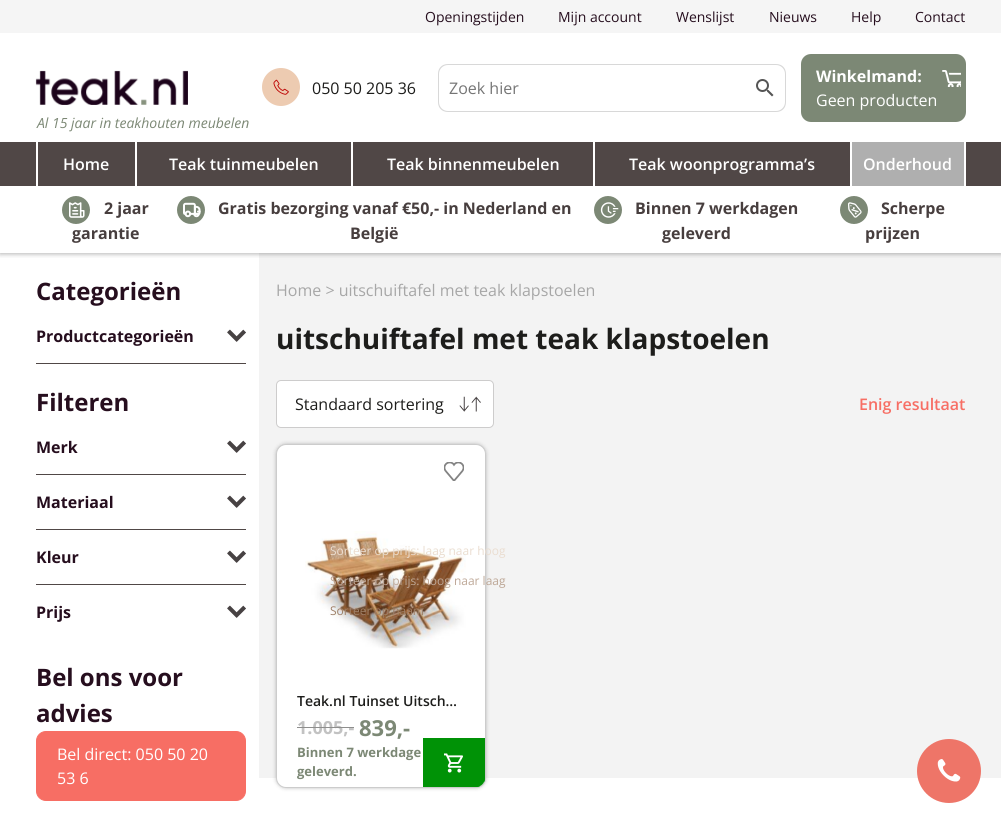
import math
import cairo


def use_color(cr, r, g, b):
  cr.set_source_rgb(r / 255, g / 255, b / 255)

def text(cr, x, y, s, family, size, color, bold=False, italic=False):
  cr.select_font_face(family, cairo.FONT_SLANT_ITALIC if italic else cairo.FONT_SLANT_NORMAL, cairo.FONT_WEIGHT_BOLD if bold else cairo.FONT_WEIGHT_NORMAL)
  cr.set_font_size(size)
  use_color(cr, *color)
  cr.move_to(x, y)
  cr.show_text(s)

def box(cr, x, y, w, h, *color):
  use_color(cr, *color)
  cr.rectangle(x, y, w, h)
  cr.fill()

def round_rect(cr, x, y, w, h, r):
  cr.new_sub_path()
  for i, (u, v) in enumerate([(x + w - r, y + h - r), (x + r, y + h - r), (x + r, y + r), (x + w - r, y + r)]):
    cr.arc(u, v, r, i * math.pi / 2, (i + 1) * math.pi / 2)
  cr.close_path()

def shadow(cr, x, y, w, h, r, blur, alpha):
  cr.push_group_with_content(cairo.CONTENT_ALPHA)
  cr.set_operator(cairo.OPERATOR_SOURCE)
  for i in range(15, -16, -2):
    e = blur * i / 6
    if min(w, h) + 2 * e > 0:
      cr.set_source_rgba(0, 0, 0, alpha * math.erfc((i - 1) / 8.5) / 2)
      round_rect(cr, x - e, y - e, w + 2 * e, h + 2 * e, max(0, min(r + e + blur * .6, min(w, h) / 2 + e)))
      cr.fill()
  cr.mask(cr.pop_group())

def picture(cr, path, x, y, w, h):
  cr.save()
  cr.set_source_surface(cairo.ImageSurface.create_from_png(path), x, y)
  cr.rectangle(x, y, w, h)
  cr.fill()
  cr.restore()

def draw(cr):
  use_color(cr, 255, 255, 255)
  cr.paint()
  box(cr, 259, 253, 742, 525, 243, 243, 243)
  cr.save()
  cr.rectangle(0, 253, 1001, 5)
  cr.clip()
  use_color(cr, 0, 0, 0)
  shadow(cr, 0, 1, 1001, 253, 0, 2.5, 0.3)
  cr.restore()
  box(cr, 0, 0, 1001, 33, 245, 245, 245)
  use_color(cr, 237, 203, 177)
  cr.arc(281, 87, 19, 0, 2 * math.pi)
  cr.fill()
  picture(cr, "img_01.png", 273, 79, 16, 16)
  use_color(cr, 216, 216, 216)
  cr.set_fill_rule(cairo.FILL_RULE_EVEN_ODD)
  cr.new_path()
  cr.move_to(744, 64)
  cr.line_to(776, 64)
  cr.curve_to(782, 64, 786, 68, 786, 74)
  cr.line_to(786, 102)
  cr.curve_to(786, 108, 782, 112, 776, 112)
  cr.line_to(744, 112)
  cr.close_path()
  cr.move_to(744, 65)
  cr.line_to(776, 65)
  cr.curve_to(781, 65, 785, 69, 785, 74)
  cr.line_to(785, 102)
  cr.curve_to(785, 107, 781, 111, 776, 111)
  cr.line_to(744, 111)
  cr.close_path()
  cr.fill()
  cr.new_path()
  cr.move_to(448, 64)
  cr.line_to(745, 64)
  cr.line_to(745, 112)
  cr.line_to(448, 112)
  cr.curve_to(442, 112, 438, 108, 438, 102)
  cr.line_to(438, 74)
  cr.curve_to(438, 68, 442, 64, 448, 64)
  cr.close_path()
  cr.move_to(448, 65)
  cr.line_to(745, 65)
  cr.line_to(745, 111)
  cr.line_to(448, 111)
  cr.curve_to(443, 111, 439, 107, 439, 102)
  cr.line_to(439, 74)
  cr.curve_to(439, 69, 443, 65, 448, 65)
  cr.close_path()
  cr.fill()
  picture(cr, "img_02.png", 756, 79, 18, 18)
  use_color(cr, 124, 136, 117)
  round_rect(cr, 801, 54, 165, 68, 10)
  cr.fill()
  picture(cr, "img_03.png", 942, 70, 19, 17)
  picture(cr, "img_04.png", 35, 70, 153, 35)
  box(cr, 0, 142, 1001, 44, 80, 71, 70)
  box(cr, 135, 142, 2, 44, 255, 255, 255)
  box(cr, 36, 142, 2, 44, 255, 255, 255)
  box(cr, 351, 142, 2, 44, 255, 255, 255)
  box(cr, 593, 142, 2, 44, 255, 255, 255)
  box(cr, 850, 142, 2, 44, 255, 255, 255)
  box(cr, 852, 142, 112, 44, 175, 175, 175)
  box(cr, 964, 142, 2, 44, 255, 255, 255)
  picture(cr, "img_05.png", 62, 196, 28, 28)
  picture(cr, "img_06.png", 177, 196, 28, 28)
  picture(cr, "img_07.png", 594, 196, 28, 28)
  picture(cr, "img_08.png", 840, 196, 28, 28)
  box(cr, 36, 363, 210, 1, 80, 71, 70)
  picture(cr, "img_09.png", 227, 329, 19, 13)
  box(cr, 36, 474, 210, 1, 80, 71, 70)
  picture(cr, "img_09.png", 227, 440, 19, 13)
  box(cr, 36, 529, 210, 1, 80, 71, 70)
  picture(cr, "img_09.png", 227, 495, 19, 13)
  box(cr, 36, 584, 210, 1, 80, 71, 70)
  picture(cr, "img_09.png", 227, 550, 19, 13)
  picture(cr, "img_09.png", 227, 605, 19, 13)
  use_color(cr, 247, 110, 100)
  round_rect(cr, 36.5, 731.5, 209, 69, 9.5)
  cr.fill_preserve()
  cr.set_line_width(1)
  cr.stroke()
  use_color(cr, 255, 255, 255)
  round_rect(cr, 276.5, 380.5, 217, 47, 4.5)
  cr.fill_preserve()
  use_color(cr, 205, 204, 204)
  cr.stroke()
  picture(cr, "img_10.png", 459, 396, 22, 16)
  use_color(cr, 0, 0, 0)
  shadow(cr, 276, 444, 210, 344, 10, 2, 0.25)
  use_color(cr, 255, 255, 255)
  round_rect(cr, 276.5, 444.5, 209, 343, 9.5)
  cr.fill_preserve()
  use_color(cr, 204, 204, 204)
  cr.stroke()
  picture(cr, "img_11.png", 444, 462, 20, 19)
  picture(cr, "img_12.png", 305, 531, 161, 118)
  use_color(cr, 0, 146, 6)
  cr.new_path()
  cr.move_to(423, 738)
  cr.line_to(485, 738)
  cr.line_to(485, 778)
  cr.curve_to(485, 783, 481, 787, 476, 787)
  cr.line_to(423, 787)
  cr.close_path()
  cr.fill()
  cr.set_fill_rule(cairo.FILL_RULE_WINDING)
  cr.new_path()
  cr.move_to(423, 738)
  cr.line_to(423, 787)
  cr.line_to(476, 787)
  cr.curve_to(477, 787, 479, 787, 480, 786)
  cr.line_to(424, 786)
  cr.line_to(424, 739)
  cr.line_to(484, 739)
  cr.line_to(484, 782)
  cr.curve_to(485, 781, 485, 779, 485, 778)
  cr.line_to(485, 738)
  cr.close_path()
  cr.fill()
  picture(cr, "img_13.png", 444, 753, 19, 20)
  use_color(cr, 238, 117, 104)
  cr.arc(949, 771, 32, 0, 2 * math.pi)
  cr.fill()
  picture(cr, "img_14.png", 937, 759, 24, 23)
  text(cr, 425, 22, "Openingstijden", "Open Sans", 14, (38, 14, 30))
  text(cr, 558, 22, "Mijn account", "Open Sans", 14, (38, 14, 30))
  text(cr, 676, 22, "Wenslijst", "Open Sans", 14, (38, 14, 30))
  text(cr, 769, 22, "Nieuws", "Open Sans", 14, (38, 14, 30))
  text(cr, 851, 22, "Help", "Open Sans", 14, (38, 14, 30))
  text(cr, 915, 22, "Contact", "Open Sans", 14, (38, 14, 30))
  text(cr, 312, 94, "050 50 205 36", "Open Sans", 16, (29, 29, 27))
  text(cr, 449, 94, "Zoek hier", "Open Sans", 16, (117, 117, 117))
  text(cr, 816, 82, "Winkelmand:", "Open Sans", 16, (255, 255, 255), bold=True)
  text(cr, 816, 106, "Geen producten", "Open Sans", 16, (255, 255, 255))
  text(cr, 37, 128, "Al 15 jaar in teakhouten meubelen", "Open Sans", 14, (124, 136, 117), italic=True)
  text(cr, 63, 170, "Home", "Open Sans SemiBold", 16, (255, 255, 255))
  text(cr, 169, 170, "Teak tuinmeubelen", "Open Sans SemiBold", 16, (255, 255, 255))
  text(cr, 387, 170, "Teak binnenmeubelen", "Open Sans SemiBold", 16, (255, 255, 255))
  text(cr, 629, 170, "Teak woonprogramma’s", "Open Sans SemiBold", 16, (255, 255, 255))
  text(cr, 863, 170, "Onderhoud", "Open Sans SemiBold", 16, (255, 255, 255))
  text(cr, 104, 214, "2 jaar", "Open Sans", 16, (71, 62, 62), bold=True)
  text(cr, 72, 239, "garantie", "Open Sans", 16, (71, 62, 62), bold=True)
  text(cr, 218, 214, "Gratis bezorging vanaf €50,- in Nederland en", "Open Sans", 16, (71, 62, 62), bold=True)
  text(cr, 350, 239, "België", "Open Sans", 16, (71, 62, 62), bold=True)
  text(cr, 635, 214, "Binnen 7 werkdagen", "Open Sans", 16, (71, 62, 62), bold=True)
  text(cr, 662, 239, "geleverd", "Open Sans", 16, (71, 62, 62), bold=True)
  text(cr, 881, 214, "Scherpe", "Open Sans", 16, (71, 62, 62), bold=True)
  text(cr, 865, 239, "prijzen", "Open Sans", 16, (71, 62, 62), bold=True)
  text(cr, 36, 300, "Categorieën", "Open Sans", 24, (38, 14, 30), bold=True)
  text(cr, 36, 342, "Productcategorieën", "Open Sans", 16, (38, 14, 30), bold=True)
  text(cr, 36, 411, "Filteren", "Open Sans", 24, (38, 14, 30), bold=True)
  text(cr, 36, 453, "Merk", "Open Sans", 16, (38, 14, 30), bold=True)
  text(cr, 36, 508, "Materiaal", "Open Sans", 16, (38, 14, 30), bold=True)
  text(cr, 36, 563, "Kleur", "Open Sans", 16, (38, 14, 30), bold=True)
  text(cr, 36, 618, "Prijs", "Open Sans", 16, (38, 14, 30), bold=True)
  text(cr, 36, 686, "Bel ons voor", "Open Sans", 24, (38, 14, 30), bold=True)
  text(cr, 36, 722, "advies", "Open Sans", 24, (38, 14, 30), bold=True)
  text(cr, 57, 760, "Bel direct: 050 50 20", "Open Sans", 16, (255, 255, 255))
  text(cr, 57, 784, "53 6", "Open Sans", 16, (255, 255, 255))
  text(cr, 276, 296, "Home > uitschuiftafel met teak klapstoelen", "Open Sans", 16, (167, 167, 167))
  text(cr, 276, 349, "uitschuiftafel met teak klapstoelen", "Open Sans", 28, (29, 29, 27), bold=True)
  text(cr, 295, 410, "Standaard sortering", "Open Sans", 16, (29, 29, 27))
  text(cr, 330, 555, "Sorteer op prijs: laag naar hoog", "Open Sans", 12, (234, 221, 208))
  text(cr, 330, 585, "Sorteer op prijs: hoog naar laag", "Open Sans", 12, (189, 167, 150))
  text(cr, 330, 615, "Sorteer op naam", "Open Sans", 12, (158, 128, 104))
  text(cr, 859, 410, "Enig resultaat", "Open Sans SemiBold", 16, (247, 110, 100))
  text(cr, 297, 706, "Teak.nl Tuinset Uitsch…", "Open Sans SemiBold", 14, (29, 29, 27))
  text(cr, 297, 734, "1.005,-", "Open Sans", 18, (194, 194, 194), bold=True)
  box(cr, 297, 727, 57, 1, 142, 142, 141)
  text(cr, 359, 736, "839,-", "Open Sans", 22, (124, 136, 117), bold=True)
  text(cr, 297, 757, "Binnen 7 werkdage", "Open Sans", 13, (124, 136, 117), bold=True)
  text(cr, 297, 776, "geleverd.", "Open Sans", 13, (124, 136, 117), bold=True)


surface = cairo.ImageSurface(cairo.FORMAT_RGB24, 1001, 823)
cr = cairo.Context(surface)
options = cairo.FontOptions()
options.set_hint_metrics(cairo.HINT_METRICS_OFF)
options.set_hint_style(cairo.HINT_STYLE_NONE)
cr.set_font_options(options)
cr.set_miter_limit(4)
draw(cr)
surface.write_to_png("out.png")
